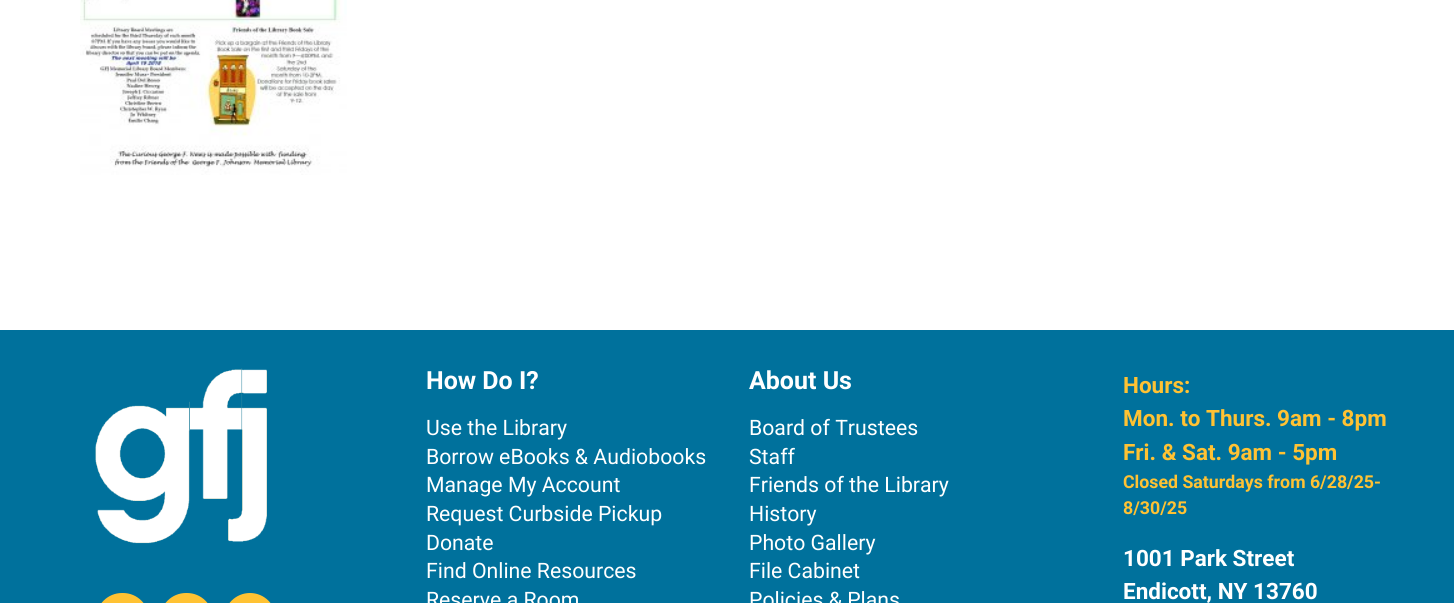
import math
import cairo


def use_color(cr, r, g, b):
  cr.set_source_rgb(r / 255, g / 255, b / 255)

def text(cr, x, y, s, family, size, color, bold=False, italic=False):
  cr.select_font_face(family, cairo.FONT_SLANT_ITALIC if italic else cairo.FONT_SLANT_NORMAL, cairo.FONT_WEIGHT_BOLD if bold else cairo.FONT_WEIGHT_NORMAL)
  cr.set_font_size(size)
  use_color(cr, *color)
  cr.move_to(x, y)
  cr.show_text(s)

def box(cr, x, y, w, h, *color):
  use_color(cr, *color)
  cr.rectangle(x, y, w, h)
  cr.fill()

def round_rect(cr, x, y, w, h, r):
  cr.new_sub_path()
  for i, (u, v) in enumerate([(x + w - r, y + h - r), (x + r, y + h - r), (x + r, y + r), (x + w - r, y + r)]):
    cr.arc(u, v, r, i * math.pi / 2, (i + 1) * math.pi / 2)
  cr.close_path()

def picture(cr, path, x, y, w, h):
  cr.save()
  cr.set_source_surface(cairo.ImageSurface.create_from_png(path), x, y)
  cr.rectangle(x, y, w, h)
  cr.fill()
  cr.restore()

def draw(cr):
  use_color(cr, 255, 255, 255)
  cr.paint()
  picture(cr, "img_01.png", 80, 0, 267, 175)
  box(cr, 0, 330, 1454, 273, 0, 113, 156)
  picture(cr, "img_02.png", 95, 368, 172, 176)
  use_color(cr, 255, 194, 51)
  round_rect(cr, 96, 593, 53, 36, 26)
  cr.fill()
  round_rect(cr, 160, 593, 53, 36, 26)
  cr.fill()
  round_rect(cr, 224, 593, 52, 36, 26)
  cr.fill()
  text(cr, 426, 389, "How Do I?", "Roboto", 25, (255, 255, 255), bold=True)
  text(cr, 426, 435, "Use the Library", "Roboto", 21.25, (255, 255, 255))
  text(cr, 426, 464, "Borrow eBooks & Audiobooks", "Roboto", 21.25, (255, 255, 255))
  text(cr, 426, 492, "Manage My Account", "Roboto", 21.25, (255, 255, 255))
  text(cr, 426, 521, "Request Curbside Pickup", "Roboto", 21.25, (255, 255, 255))
  text(cr, 426, 550, "Donate", "Roboto", 21.25, (255, 255, 255))
  text(cr, 426, 578, "Find Online Resources", "Roboto", 21.25, (255, 255, 255))
  text(cr, 426, 607, "Reserve a Room", "Roboto", 21.25, (255, 255, 255))
  text(cr, 749, 389, "About Us", "Roboto", 25, (255, 255, 255), bold=True)
  text(cr, 749, 435, "Board of Trustees", "Roboto", 21.25, (255, 255, 255))
  text(cr, 749, 464, "Staff", "Roboto", 21.25, (255, 255, 255))
  text(cr, 749, 492, "Friends of the Library", "Roboto", 21.25, (255, 255, 255))
  text(cr, 749, 521, "History", "Roboto", 21.25, (255, 255, 255))
  text(cr, 749, 550, "Photo Gallery", "Roboto", 21.25, (255, 255, 255))
  text(cr, 749, 578, "File Cabinet", "Roboto", 21.25, (255, 255, 255))
  text(cr, 749, 607, "Policies & Plans", "Roboto", 21.25, (255, 255, 255))
  text(cr, 1123, 393, "Hours:", "Roboto", 22.5, (255, 194, 51), bold=True)
  text(cr, 1123, 426, "Mon. to Thurs. 9am - 8pm", "Roboto", 22.5, (255, 194, 51), bold=True)
  text(cr, 1123, 460, "Fri. & Sat. 9am - 5pm", "Roboto", 22.5, (255, 194, 51), bold=True)
  text(cr, 1123, 488, "Closed Saturdays from 6/28/25-", "Roboto", 17.75, (255, 194, 51), bold=True)
  text(cr, 1123, 514, "8/30/25", "Roboto", 17.75, (255, 194, 51), bold=True)
  text(cr, 1123, 566, "1001 Park Street", "Roboto", 22.5, (255, 255, 255), bold=True)
  text(cr, 1123, 599, "Endicott, NY 13760", "Roboto", 22.5, (255, 255, 255), bold=True)


surface = cairo.ImageSurface(cairo.FORMAT_RGB24, 1454, 603)
cr = cairo.Context(surface)
options = cairo.FontOptions()
options.set_hint_metrics(cairo.HINT_METRICS_OFF)
options.set_hint_style(cairo.HINT_STYLE_NONE)
cr.set_font_options(options)
cr.set_miter_limit(4)
draw(cr)
surface.write_to_png("out.png")
